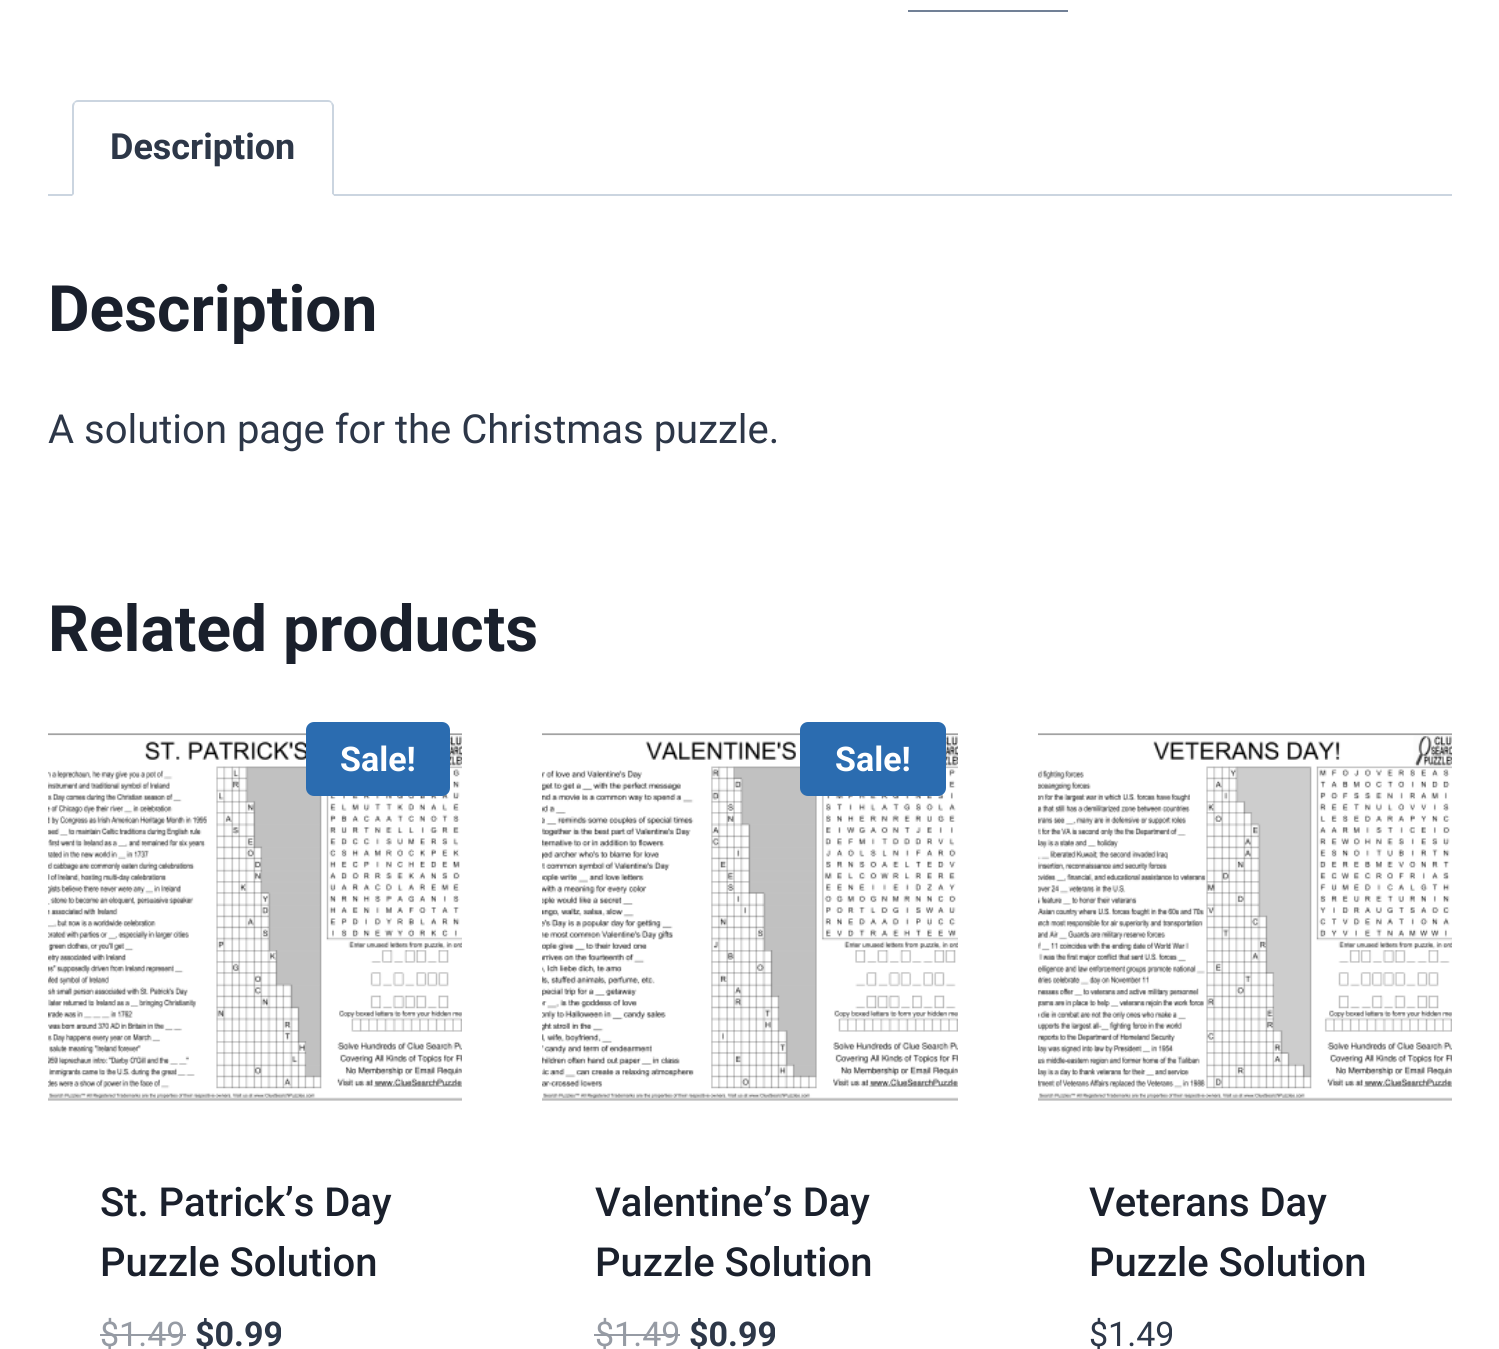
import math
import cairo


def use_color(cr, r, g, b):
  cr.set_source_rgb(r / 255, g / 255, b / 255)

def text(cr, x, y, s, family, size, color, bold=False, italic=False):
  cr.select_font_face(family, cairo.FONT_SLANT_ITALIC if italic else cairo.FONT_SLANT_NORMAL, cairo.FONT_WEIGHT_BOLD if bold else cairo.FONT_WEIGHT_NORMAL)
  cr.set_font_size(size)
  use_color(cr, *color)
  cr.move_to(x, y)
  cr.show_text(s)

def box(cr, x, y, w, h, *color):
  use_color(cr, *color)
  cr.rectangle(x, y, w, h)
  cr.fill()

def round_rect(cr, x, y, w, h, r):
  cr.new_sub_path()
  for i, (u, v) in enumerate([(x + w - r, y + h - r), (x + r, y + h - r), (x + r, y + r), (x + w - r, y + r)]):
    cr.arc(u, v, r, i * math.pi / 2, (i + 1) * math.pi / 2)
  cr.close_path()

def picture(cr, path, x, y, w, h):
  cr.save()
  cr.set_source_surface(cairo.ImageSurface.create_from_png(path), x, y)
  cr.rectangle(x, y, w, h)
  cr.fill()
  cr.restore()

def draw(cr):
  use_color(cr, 255, 255, 255)
  cr.paint()
  box(cr, 908, 10, 160, 2, 113, 128, 150)
  box(cr, 48, 194, 1404, 2, 203, 213, 224)
  use_color(cr, 255, 255, 255)
  cr.new_path()
  cr.move_to(78, 100)
  cr.line_to(328, 100)
  cr.curve_to(331.5, 100, 334, 102.5, 334, 106)
  cr.line_to(334, 196)
  cr.line_to(72, 196)
  cr.line_to(72, 106)
  cr.curve_to(72, 102.5, 74.5, 100, 78, 100)
  cr.close_path()
  cr.fill()
  use_color(cr, 203, 213, 224)
  cr.new_path()
  cr.move_to(78, 100)
  cr.curve_to(76, 100, 75, 101, 74, 102)
  cr.line_to(75, 103)
  cr.curve_to(76, 102, 77, 102, 78, 102)
  cr.line_to(328, 102)
  cr.curve_to(329, 102, 330, 102, 331, 103)
  cr.line_to(332, 102)
  cr.curve_to(331, 101, 330, 100, 328, 100)
  cr.close_path()
  cr.fill()
  cr.new_path()
  cr.move_to(334, 196)
  cr.line_to(334, 105)
  cr.line_to(332, 102)
  cr.line_to(331, 103)
  cr.line_to(332, 106)
  cr.line_to(332, 194)
  cr.close_path()
  cr.fill()
  use_color(cr, 255, 255, 255)
  cr.new_path()
  cr.move_to(334, 196)
  cr.line_to(332, 194)
  cr.line_to(74, 194)
  cr.line_to(72, 196)
  cr.close_path()
  cr.fill()
  use_color(cr, 203, 213, 224)
  cr.new_path()
  cr.move_to(72, 196)
  cr.line_to(74, 194)
  cr.line_to(74, 106)
  cr.line_to(75, 103)
  cr.line_to(74, 102)
  cr.curve_to(73, 103, 72, 104, 72, 106)
  cr.close_path()
  cr.fill()
  picture(cr, "img_01.png", 48, 733, 414, 368)
  use_color(cr, 43, 108, 176)
  round_rect(cr, 306, 722, 144, 74, 8)
  cr.fill()
  box(cr, 100, 1334, 86, 2, 150, 155, 164)
  picture(cr, "img_02.png", 542, 733, 416, 368)
  use_color(cr, 43, 108, 176)
  round_rect(cr, 800, 722, 146, 74, 8)
  cr.fill()
  box(cr, 594, 1334, 86, 2, 150, 155, 164)
  picture(cr, "img_03.png", 1038, 733, 414, 368)
  text(cr, 110, 159, "Description", "Roboto", 36, (45, 55, 72), bold=True)
  text(cr, 48, 331, "Description", "Roboto", 64, (26, 32, 44), bold=True)
  text(cr, 48, 443, "A solution page for the Christmas puzzle.", "Roboto", 40, (45, 55, 72))
  text(cr, 48, 651, "Related products", "Roboto", 64, (26, 32, 44), bold=True)
  text(cr, 340, 771, "Sale!", "Roboto", 34, (255, 255, 255), bold=True)
  text(cr, 100, 1216, "St. Patrick’s Day", "Roboto Medium", 40, (26, 32, 44))
  text(cr, 100, 1276, "Puzzle Solution", "Roboto Medium", 40, (26, 32, 44))
  text(cr, 100, 1346, "$1.49", "Roboto", 34, (150, 155, 164))
  text(cr, 195, 1346, "$0.99", "Roboto", 34, (45, 55, 72), bold=True)
  text(cr, 835, 771, "Sale!", "Roboto", 34, (255, 255, 255), bold=True)
  text(cr, 595, 1216, "Valentine’s Day", "Roboto Medium", 40, (26, 32, 44))
  text(cr, 595, 1276, "Puzzle Solution", "Roboto Medium", 40, (26, 32, 44))
  text(cr, 595, 1346, "$1.49", "Roboto", 34, (150, 155, 164))
  text(cr, 689, 1346, "$0.99", "Roboto", 34, (45, 55, 72), bold=True)
  text(cr, 1089, 1216, "Veterans Day", "Roboto Medium", 40, (26, 32, 44))
  text(cr, 1089, 1276, "Puzzle Solution", "Roboto Medium", 40, (26, 32, 44))
  text(cr, 1089, 1346, "$1.49", "Roboto", 34, (45, 55, 72))


surface = cairo.ImageSurface(cairo.FORMAT_RGB24, 1499, 1349)
cr = cairo.Context(surface)
options = cairo.FontOptions()
options.set_hint_metrics(cairo.HINT_METRICS_OFF)
options.set_hint_style(cairo.HINT_STYLE_NONE)
cr.set_font_options(options)
cr.set_miter_limit(4)
draw(cr)
surface.write_to_png("out.png")
